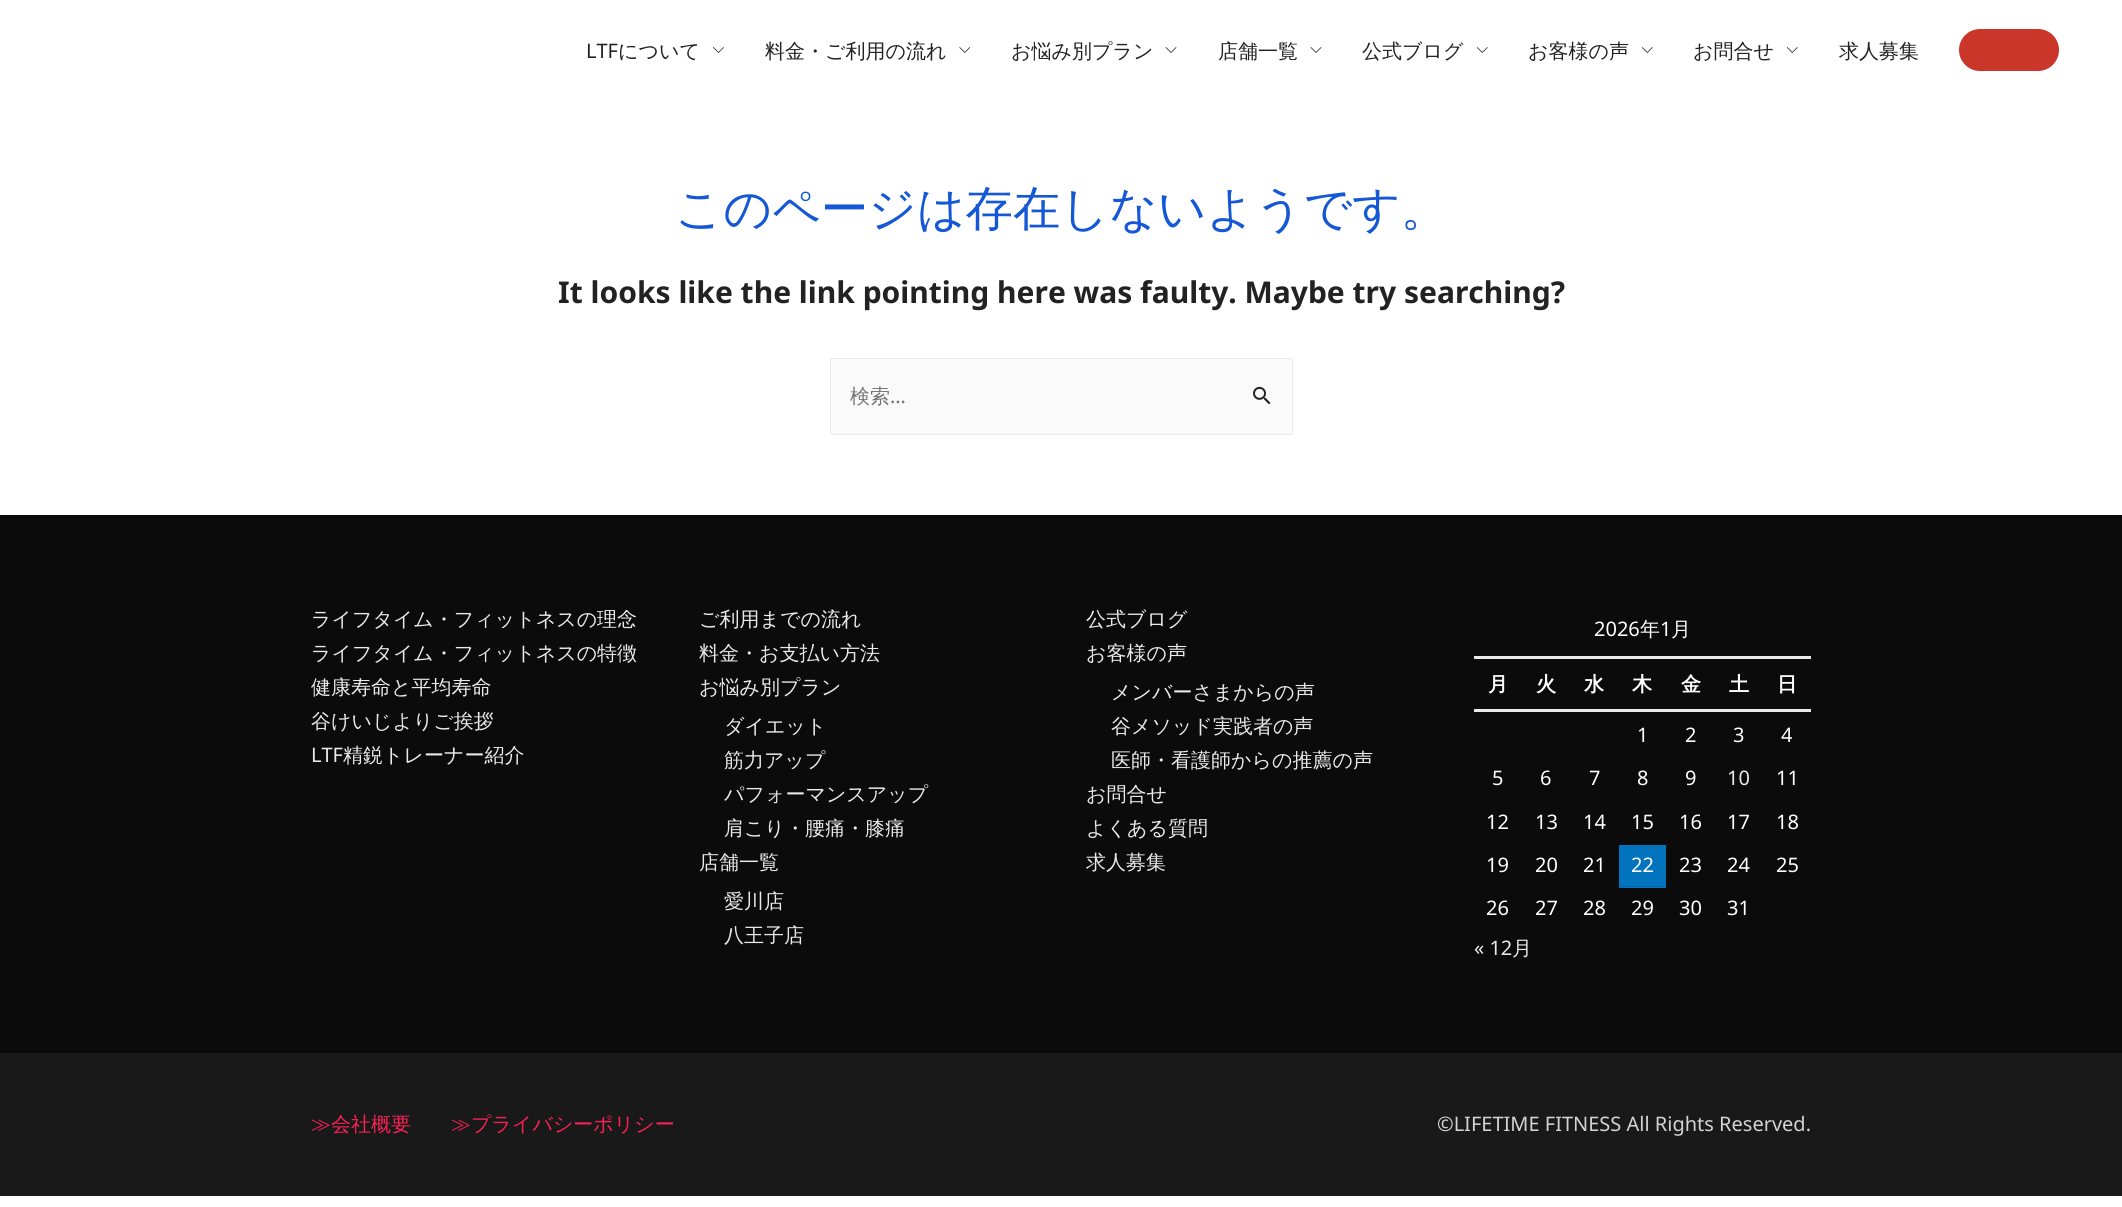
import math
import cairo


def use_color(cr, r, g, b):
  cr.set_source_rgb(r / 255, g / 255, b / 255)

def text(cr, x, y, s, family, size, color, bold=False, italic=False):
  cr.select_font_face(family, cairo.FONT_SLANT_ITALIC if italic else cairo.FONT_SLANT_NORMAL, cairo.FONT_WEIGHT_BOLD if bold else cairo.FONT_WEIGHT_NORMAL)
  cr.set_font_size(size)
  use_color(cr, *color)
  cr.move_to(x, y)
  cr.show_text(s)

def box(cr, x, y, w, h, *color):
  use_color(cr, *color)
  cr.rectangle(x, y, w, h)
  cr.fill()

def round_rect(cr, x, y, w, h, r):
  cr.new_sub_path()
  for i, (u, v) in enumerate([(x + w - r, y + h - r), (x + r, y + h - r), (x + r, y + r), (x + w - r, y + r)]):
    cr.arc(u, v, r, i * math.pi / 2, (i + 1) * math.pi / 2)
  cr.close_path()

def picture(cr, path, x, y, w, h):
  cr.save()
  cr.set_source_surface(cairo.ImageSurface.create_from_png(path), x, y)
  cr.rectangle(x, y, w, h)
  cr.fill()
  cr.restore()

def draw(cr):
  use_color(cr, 255, 255, 255)
  cr.paint()
  picture(cr, "img_01.png", 713, 47, 11, 6)
  picture(cr, "img_02.png", 959, 47, 12, 6)
  picture(cr, "img_03.png", 1165, 47, 12, 6)
  picture(cr, "img_03.png", 1310, 47, 12, 6)
  picture(cr, "img_04.png", 1476, 47, 12, 6)
  picture(cr, "img_04.png", 1641, 47, 12, 6)
  picture(cr, "img_04.png", 1786, 47, 12, 6)
  use_color(cr, 202, 54, 42)
  round_rect(cr, 1959, 29, 100, 42, 21)
  cr.fill()
  use_color(cr, 250, 250, 250)
  round_rect(cr, 830.5, 358.5, 462, 76, 2)
  cr.fill_preserve()
  use_color(cr, 234, 234, 234)
  cr.set_line_width(1)
  cr.stroke()
  picture(cr, "img_05.png", 1253, 386, 18, 19)
  box(cr, 0, 515, 2122, 538, 11, 11, 11)
  box(cr, 1474, 656, 337, 3, 234, 234, 234)
  box(cr, 1474, 709, 337, 3, 234, 234, 234)
  box(cr, 1619, 845, 47, 43, 2, 116, 190)
  box(cr, 1619, 886, 47, 1, 2, 104, 171)
  box(cr, 0, 1053, 2122, 143, 25, 25, 25)
  text(cr, 586, 58, "LTF", "Noto Sans", 20, (34, 34, 34))
  text(cr, 618, 58, "について", "WenQuanYi Zen Hei Medium", 20, (34, 34, 34))
  text(cr, 765, 58, "料金・ご利用の流れ", "WenQuanYi Zen Hei Medium", 20, (34, 34, 34))
  text(cr, 1011, 58, "お悩み別プラン", "WenQuanYi Zen Hei Medium", 20, (34, 34, 34))
  text(cr, 1218, 58, "店舗一覧", "WenQuanYi Zen Hei Medium", 20, (34, 34, 34))
  text(cr, 1362, 58, "公式ブログ", "WenQuanYi Zen Hei Medium", 20, (34, 34, 34))
  text(cr, 1528, 58, "お客様の声", "WenQuanYi Zen Hei Medium", 20, (34, 34, 34))
  text(cr, 1693, 58, "お問合せ", "WenQuanYi Zen Hei Medium", 20, (34, 34, 34))
  text(cr, 1839, 58, "求人募集", "WenQuanYi Zen Hei Medium", 20, (34, 34, 34))
  text(cr, 675, 225, "このページは存在しないようです。", "WenQuanYi Zen Hei Medium", 47.5, (21, 88, 214))
  text(cr, 558, 303, "It looks like the link pointing here was faulty. Maybe try searching?", "Noto Sans", 30, (34, 34, 34), bold=True)
  text(cr, 850, 403, "検索", "WenQuanYi Zen Hei Medium", 20, (117, 117, 117))
  text(cr, 890, 403, "…", "Noto Sans", 20, (117, 117, 117))
  text(cr, 311, 626, "ライフタイム・フィットネスの理念", "WenQuanYi Zen Hei Medium", 20, (234, 234, 234))
  text(cr, 311, 660, "ライフタイム・フィットネスの特徴", "WenQuanYi Zen Hei Medium", 20, (234, 234, 234))
  text(cr, 311, 694, "健康寿命と平均寿命", "WenQuanYi Zen Hei Medium", 20, (234, 234, 234))
  text(cr, 311, 728, "谷けいじよりご挨拶", "WenQuanYi Zen Hei Medium", 20, (234, 234, 234))
  text(cr, 311, 762, "LTF", "Noto Sans", 20, (234, 234, 234))
  text(cr, 343, 762, "精鋭トレーナー紹介", "WenQuanYi Zen Hei Medium", 20, (234, 234, 234))
  text(cr, 699, 626, "ご利用までの流れ", "WenQuanYi Zen Hei Medium", 20, (234, 234, 234))
  text(cr, 699, 660, "料金・お支払い方法", "WenQuanYi Zen Hei Medium", 20, (234, 234, 234))
  text(cr, 699, 694, "お悩み別プラン", "WenQuanYi Zen Hei Medium", 20, (234, 234, 234))
  text(cr, 724, 733, "ダイエット", "WenQuanYi Zen Hei Medium", 20, (234, 234, 234))
  text(cr, 724, 767, "筋力アップ", "WenQuanYi Zen Hei Medium", 20, (234, 234, 234))
  text(cr, 724, 801, "パフォーマンスアップ", "WenQuanYi Zen Hei Medium", 20, (234, 234, 234))
  text(cr, 724, 835, "肩こり・腰痛・膝痛", "WenQuanYi Zen Hei Medium", 20, (234, 234, 234))
  text(cr, 699, 869, "店舗一覧", "WenQuanYi Zen Hei Medium", 20, (234, 234, 234))
  text(cr, 724, 908, "愛川店", "WenQuanYi Zen Hei Medium", 20, (234, 234, 234))
  text(cr, 724, 942, "八王子店", "WenQuanYi Zen Hei Medium", 20, (234, 234, 234))
  text(cr, 1086, 626, "公式ブログ", "WenQuanYi Zen Hei Medium", 20, (234, 234, 234))
  text(cr, 1086, 660, "お客様の声", "WenQuanYi Zen Hei Medium", 20, (234, 234, 234))
  text(cr, 1111, 699, "メンバーさまからの声", "WenQuanYi Zen Hei Medium", 20, (234, 234, 234))
  text(cr, 1111, 733, "谷メソッド実践者の声", "WenQuanYi Zen Hei Medium", 20, (234, 234, 234))
  text(cr, 1111, 767, "医師・看護師からの推薦の声", "WenQuanYi Zen Hei Medium", 20, (234, 234, 234))
  text(cr, 1086, 801, "お問合せ", "WenQuanYi Zen Hei Medium", 20, (234, 234, 234))
  text(cr, 1086, 835, "よくある質問", "WenQuanYi Zen Hei Medium", 20, (234, 234, 234))
  text(cr, 1086, 869, "求人募集", "WenQuanYi Zen Hei Medium", 20, (234, 234, 234))
  text(cr, 1594, 636, "2026", "Noto Sans", 20, (255, 255, 255))
  text(cr, 1640, 636, "年", "WenQuanYi Zen Hei Medium", 20, (255, 255, 255))
  text(cr, 1660, 636, "1", "Noto Sans", 20, (255, 255, 255))
  text(cr, 1671, 636, "月", "WenQuanYi Zen Hei Medium", 20, (255, 255, 255))
  text(cr, 1488, 691, "月", "WenQuanYi Zen Hei", 20, (255, 255, 255), bold=True)
  text(cr, 1536, 691, "火", "WenQuanYi Zen Hei", 20, (255, 255, 255), bold=True)
  text(cr, 1584, 691, "水", "WenQuanYi Zen Hei", 20, (255, 255, 255), bold=True)
  text(cr, 1632, 691, "木", "WenQuanYi Zen Hei", 20, (255, 255, 255), bold=True)
  text(cr, 1681, 691, "金", "WenQuanYi Zen Hei", 20, (255, 255, 255), bold=True)
  text(cr, 1729, 691, "土", "WenQuanYi Zen Hei", 20, (255, 255, 255), bold=True)
  text(cr, 1777, 691, "日", "WenQuanYi Zen Hei", 20, (255, 255, 255), bold=True)
  text(cr, 1637, 742, "1", "Noto Sans", 20, (255, 255, 255))
  text(cr, 1685, 742, "2", "Noto Sans", 20, (255, 255, 255))
  text(cr, 1733, 742, "3", "Noto Sans", 20, (255, 255, 255))
  text(cr, 1781, 742, "4", "Noto Sans", 20, (255, 255, 255))
  text(cr, 1492, 785, "5", "Noto Sans", 20, (255, 255, 255))
  text(cr, 1540, 785, "6", "Noto Sans", 20, (255, 255, 255))
  text(cr, 1589, 785, "7", "Noto Sans", 20, (255, 255, 255))
  text(cr, 1637, 785, "8", "Noto Sans", 20, (255, 255, 255))
  text(cr, 1685, 785, "9", "Noto Sans", 20, (255, 255, 255))
  text(cr, 1727, 785, "10", "Noto Sans", 20, (234, 234, 234))
  text(cr, 1776, 785, "11", "Noto Sans", 20, (255, 255, 255))
  text(cr, 1486, 829, "12", "Noto Sans", 20, (255, 255, 255))
  text(cr, 1535, 829, "13", "Noto Sans", 20, (255, 255, 255))
  text(cr, 1583, 829, "14", "Noto Sans", 20, (255, 255, 255))
  text(cr, 1631, 829, "15", "Noto Sans", 20, (255, 255, 255))
  text(cr, 1679, 829, "16", "Noto Sans", 20, (255, 255, 255))
  text(cr, 1727, 829, "17", "Noto Sans", 20, (255, 255, 255))
  text(cr, 1776, 829, "18", "Noto Sans", 20, (255, 255, 255))
  text(cr, 1486, 872, "19", "Noto Sans", 20, (255, 255, 255))
  text(cr, 1535, 872, "20", "Noto Sans", 20, (255, 255, 255))
  text(cr, 1583, 872, "21", "Noto Sans", 20, (255, 255, 255))
  text(cr, 1631, 872, "22", "Noto Sans", 20, (255, 255, 255))
  text(cr, 1679, 872, "23", "Noto Sans", 20, (255, 255, 255))
  text(cr, 1727, 872, "24", "Noto Sans", 20, (255, 255, 255))
  text(cr, 1776, 872, "25", "Noto Sans", 20, (255, 255, 255))
  text(cr, 1486, 915, "26", "Noto Sans", 20, (255, 255, 255))
  text(cr, 1535, 915, "27", "Noto Sans", 20, (255, 255, 255))
  text(cr, 1583, 915, "28", "Noto Sans", 20, (255, 255, 255))
  text(cr, 1631, 915, "29", "Noto Sans", 20, (255, 255, 255))
  text(cr, 1679, 915, "30", "Noto Sans", 20, (255, 255, 255))
  text(cr, 1727, 915, "31", "Noto Sans", 20, (255, 255, 255))
  text(cr, 1474, 955, "« 12", "Noto Sans", 20, (234, 234, 234))
  text(cr, 1512, 955, "月", "WenQuanYi Zen Hei Medium", 20, (234, 234, 234))
  text(cr, 311, 1131, "≫会社概要", "WenQuanYi Zen Hei Medium", 20, (251, 32, 86))
  text(cr, 451, 1131, "≫プライバシーポリシー", "WenQuanYi Zen Hei Medium", 20, (251, 32, 86))
  text(cr, 1437, 1131, "©LIFETIME FITNESS All Rights Reserved.", "Noto Sans", 20, (211, 211, 211))


surface = cairo.ImageSurface(cairo.FORMAT_RGB24, 2122, 1207)
cr = cairo.Context(surface)
options = cairo.FontOptions()
options.set_hint_metrics(cairo.HINT_METRICS_OFF)
options.set_hint_style(cairo.HINT_STYLE_NONE)
cr.set_font_options(options)
cr.set_miter_limit(4)
draw(cr)
surface.write_to_png("out.png")
